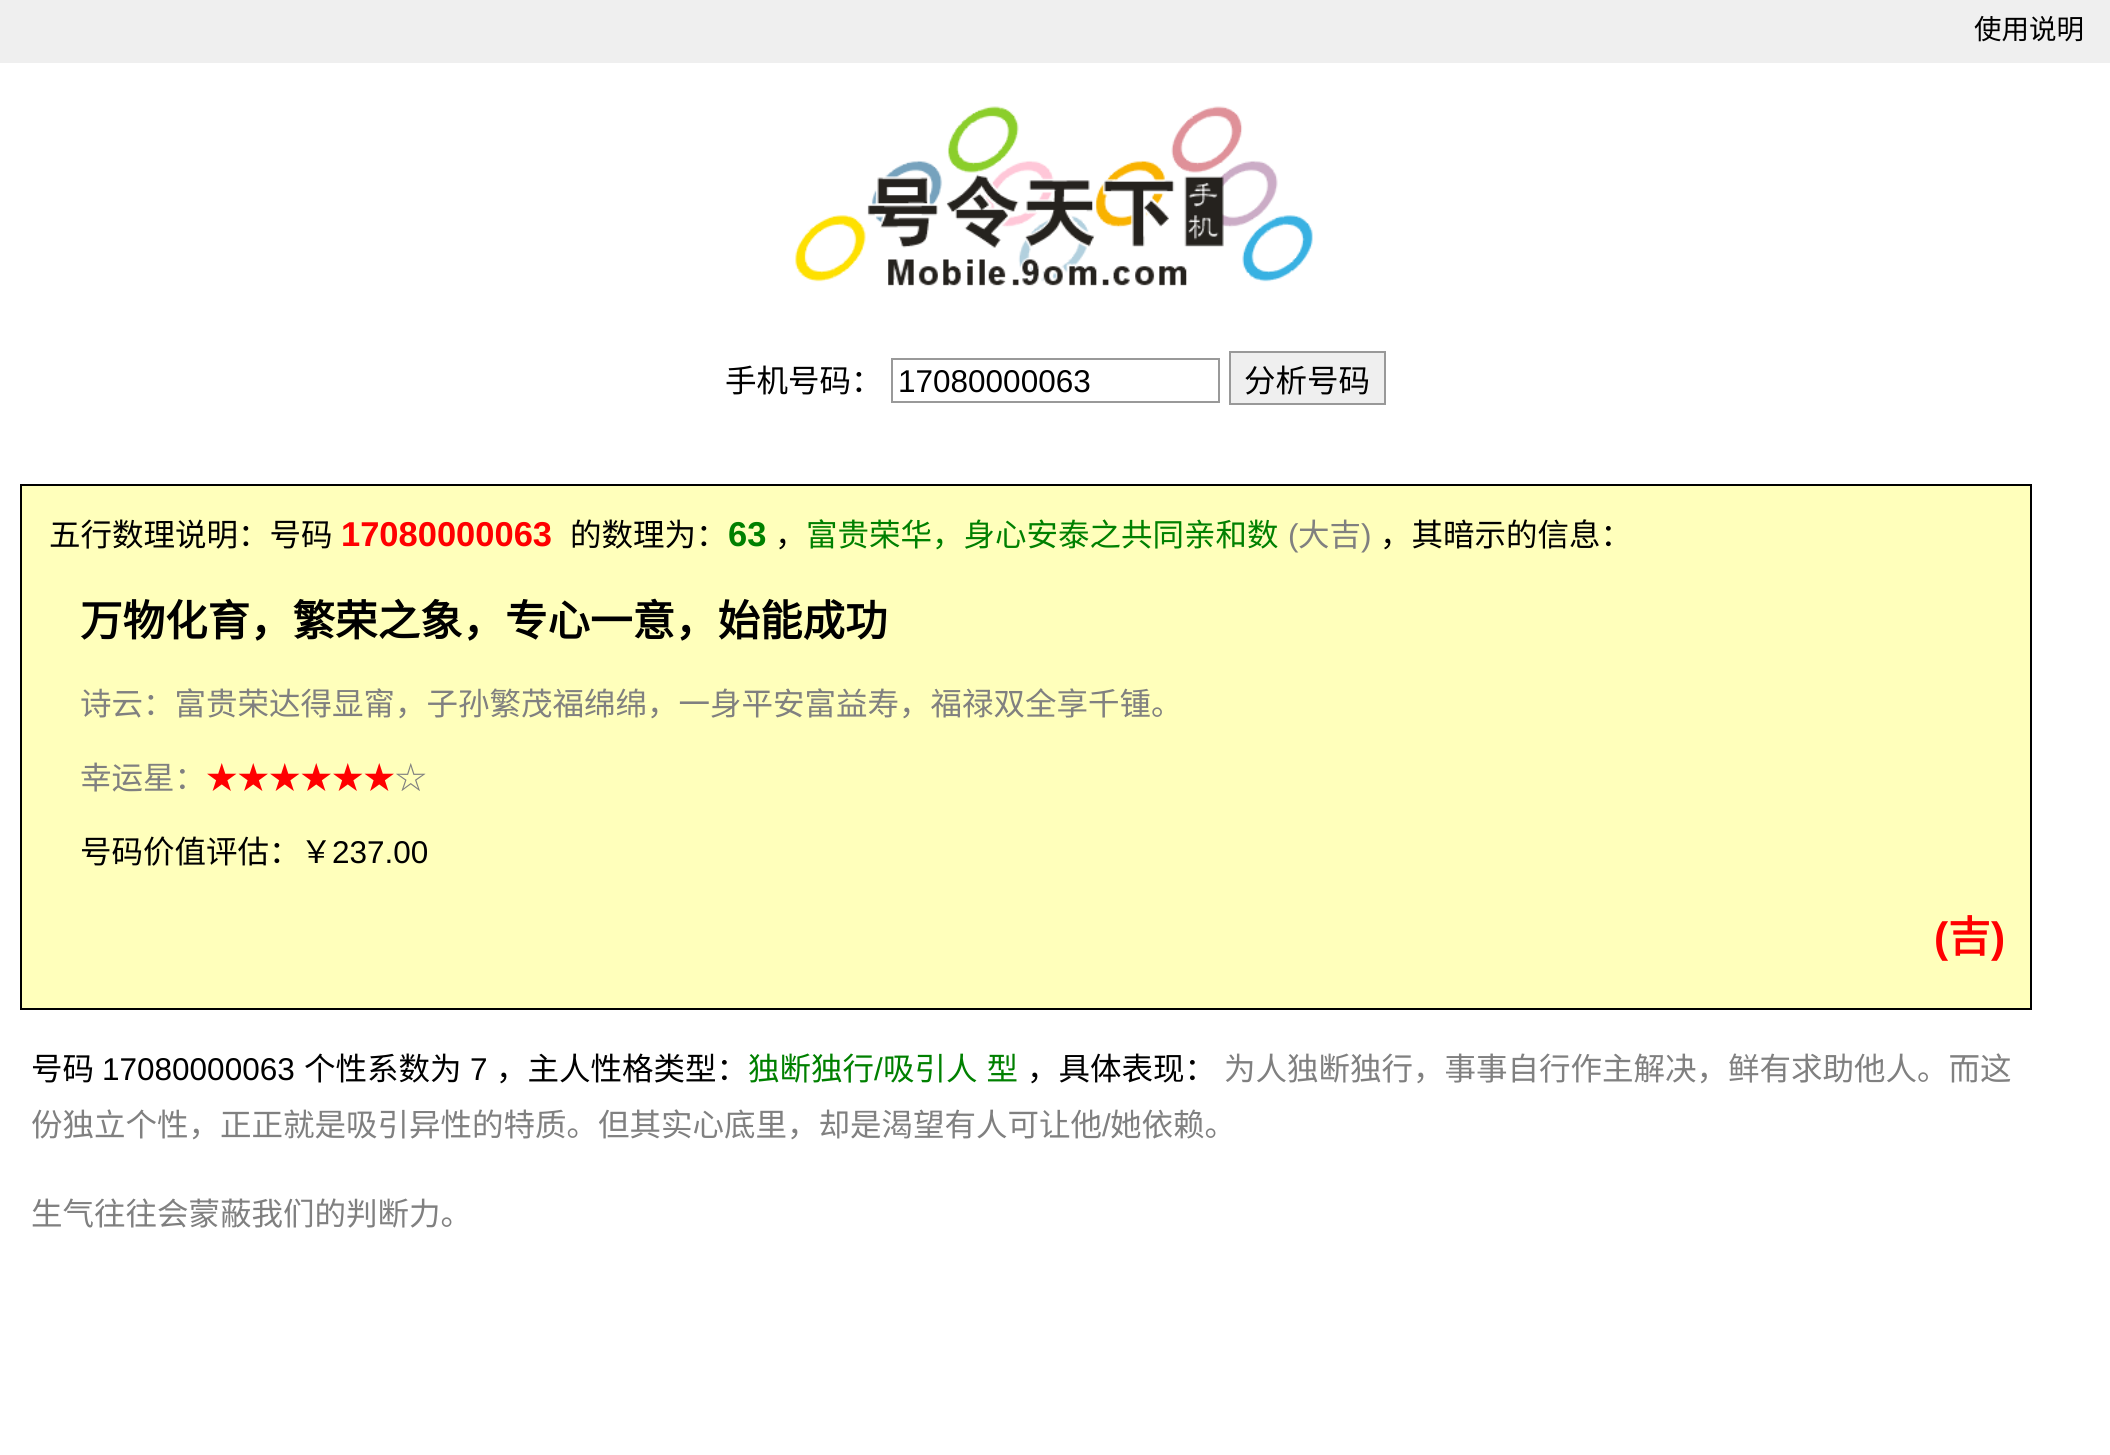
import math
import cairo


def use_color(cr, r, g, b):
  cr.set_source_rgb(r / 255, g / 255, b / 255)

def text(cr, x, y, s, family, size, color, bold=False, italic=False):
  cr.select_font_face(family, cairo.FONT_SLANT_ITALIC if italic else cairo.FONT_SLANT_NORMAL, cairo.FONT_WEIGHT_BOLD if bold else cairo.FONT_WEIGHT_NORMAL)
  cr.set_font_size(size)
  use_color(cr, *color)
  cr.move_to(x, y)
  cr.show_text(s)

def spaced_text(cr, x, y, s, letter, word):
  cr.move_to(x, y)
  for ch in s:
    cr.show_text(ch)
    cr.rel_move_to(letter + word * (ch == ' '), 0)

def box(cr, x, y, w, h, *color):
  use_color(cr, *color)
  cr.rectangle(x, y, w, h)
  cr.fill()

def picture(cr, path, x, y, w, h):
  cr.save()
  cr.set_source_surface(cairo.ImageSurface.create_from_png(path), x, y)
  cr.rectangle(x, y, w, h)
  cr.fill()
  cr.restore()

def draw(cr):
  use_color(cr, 255, 255, 255)
  cr.paint()
  box(cr, 0, 0, 2110, 63, 239, 239, 239)
  picture(cr, "img_01.png", 795, 106, 518, 180)
  cr.rectangle(892, 359, 327, 43)
  use_color(cr, 153, 153, 153)
  cr.stroke()
  use_color(cr, 239, 239, 239)
  cr.rectangle(1230, 352, 155, 52)
  cr.fill_preserve()
  use_color(cr, 153, 153, 153)
  cr.stroke()
  use_color(cr, 255, 255, 187)
  cr.rectangle(21, 485, 2010, 524)
  cr.fill_preserve()
  use_color(cr, 0, 0, 0)
  cr.stroke()
  text(cr, 1974, 39, "使用说明", "Noto Sans CJK SC", 27.5, (0, 0, 0))
  text(cr, 725, 392, "手机号码：", "Noto Sans CJK SC", 31.5, (0, 0, 0))
  text(cr, 898, 392, "17080000063", "Liberation Sans", 31.5, (0, 0, 0))
  text(cr, 1244, 392, "分析号码", "Noto Sans CJK SC", 31.5, (0, 0, 0))
  text(cr, 49, 546, "五行数理说明：号码", "Noto Sans CJK SC", 31.5, (0, 0, 0))
  text(cr, 341, 546, "17080000063", "Liberation Sans", 34.5, (255, 0, 0), bold=True)
  text(cr, 570, 546, "的数理为：", "Noto Sans CJK SC", 31.5, (0, 0, 0))
  text(cr, 728, 546, "63", "Liberation Sans", 34.5, (0, 128, 0), bold=True)
  text(cr, 775, 546, "，", "Noto Sans CJK SC", 31.5, (0, 0, 0))
  text(cr, 806, 546, "富贵荣华，身心安泰之共同亲和数", "Noto Sans CJK SC", 31.5, (0, 128, 0))
  text(cr, 1288, 546, "(", "Liberation Sans", 31.5, (128, 128, 128))
  text(cr, 1298, 546, "大吉", "Noto Sans CJK SC", 31.5, (128, 128, 128))
  text(cr, 1361, 546, ")", "Liberation Sans", 31.5, (128, 128, 128))
  text(cr, 1380, 546, "，其暗示的信息：", "Noto Sans CJK SC", 31.5, (0, 0, 0))
  text(cr, 80, 636, "万物化育，繁荣之象，专心一意，始能成功", "Noto Sans CJK SC", 42.5, (0, 0, 0), bold=True)
  text(cr, 80, 715, "诗云：富贵荣达得显甯，子孙繁茂福绵绵，一身平安富益寿，福禄双全享千锺。", "Noto Sans CJK SC", 31.5, (128, 128, 128))
  text(cr, 80, 789, "幸运星：", "Noto Sans CJK SC", 31.5, (128, 128, 128))
  text(cr, 206, 789, "★★★★★★", "Noto Sans CJK SC", 31.5, (255, 0, 0))
  text(cr, 395, 789, "☆", "Noto Sans CJK SC", 31.5, (128, 128, 128))
  text(cr, 80, 863, "号码价值评估：￥", "Noto Sans CJK SC", 31.5, (0, 0, 0))
  text(cr, 332, 863, "237.00", "Liberation Sans", 31.5, (0, 0, 0))
  text(cr, 1934, 952, "(", "Liberation Sans", 42.5, (255, 0, 0), bold=True)
  text(cr, 1948, 952, "吉", "Noto Sans CJK SC", 42.5, (255, 0, 0), bold=True)
  text(cr, 1991, 952, ")", "Liberation Sans", 42.5, (255, 0, 0), bold=True)
  text(cr, 31, 1080, "号码", "Noto Sans CJK SC", 31.5, (0, 0, 0))
  text(cr, 102, 1080, "17080000063", "Liberation Sans", 31.5, (0, 0, 0))
  text(cr, 304, 1080, "个性系数为", "Noto Sans CJK SC", 31.5, (0, 0, 0))
  text(cr, 470, 1080, "7", "Liberation Sans", 31.5, (0, 0, 0))
  text(cr, 496, 1080, "，主人性格类型：", "Noto Sans CJK SC", 31.5, (0, 0, 0))
  text(cr, 748, 1080, "独断独行", "Noto Sans CJK SC", 31.5, (0, 128, 0))
  text(cr, 874, 1080, "/", "Liberation Sans", 31.5, (0, 128, 0))
  cr.select_font_face("Noto Sans CJK SC")
  spaced_text(cr, 883, 1080, "吸引人 型", 0, 2)
  text(cr, 1027, 1080, "，具体表现：", "Noto Sans CJK SC", 31.5, (0, 0, 0))
  text(cr, 1224, 1080, "为人独断独行，事事自行作主解决，鲜有求助他人。而这", "Noto Sans CJK SC", 31.5, (128, 128, 128))
  text(cr, 31, 1136, "份独立个性，正正就是吸引异性的特质。但其实心底里，却是渴望有人可让他", "Noto Sans CJK SC", 31.5, (128, 128, 128))
  text(cr, 1102, 1136, "/", "Liberation Sans", 31.5, (128, 128, 128))
  text(cr, 1110, 1136, "她依赖。", "Noto Sans CJK SC", 31.5, (128, 128, 128))
  text(cr, 31, 1225, "生气往往会蒙蔽我们的判断力。", "Noto Sans CJK SC", 31.5, (128, 128, 128))


surface = cairo.ImageSurface(cairo.FORMAT_RGB24, 2110, 1455)
cr = cairo.Context(surface)
options = cairo.FontOptions()
options.set_hint_metrics(cairo.HINT_METRICS_OFF)
options.set_hint_style(cairo.HINT_STYLE_NONE)
cr.set_font_options(options)
cr.set_miter_limit(4)
draw(cr)
surface.write_to_png("out.png")
